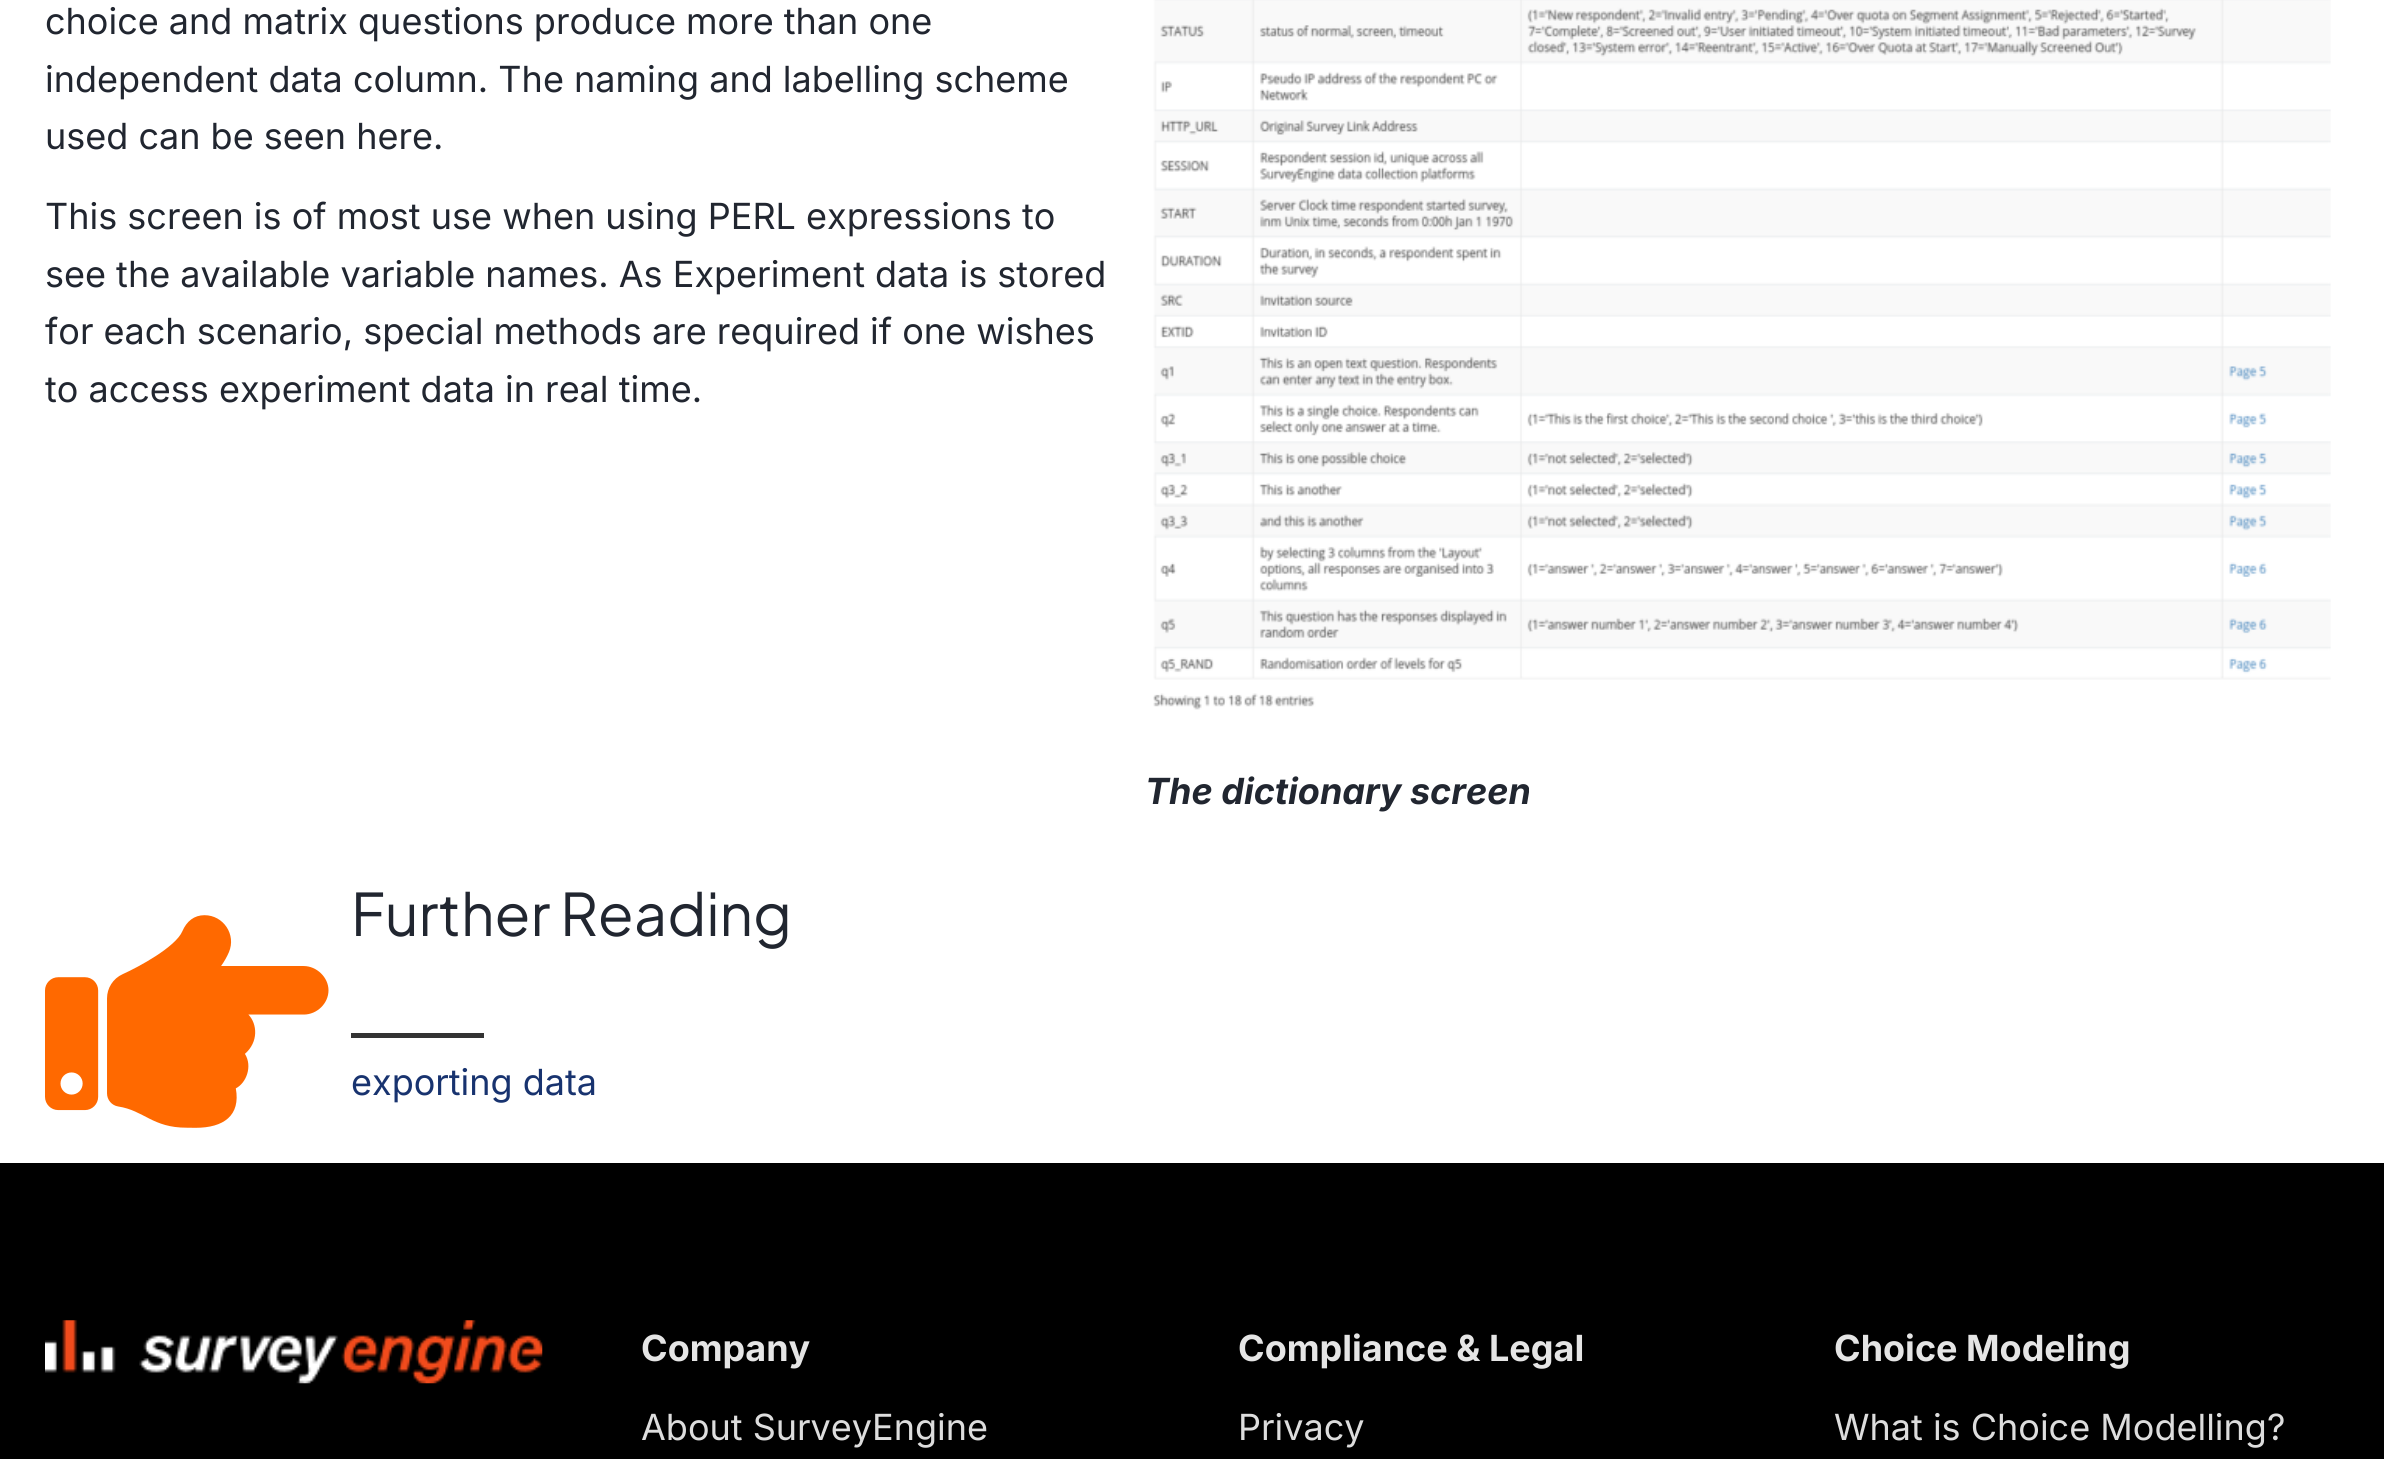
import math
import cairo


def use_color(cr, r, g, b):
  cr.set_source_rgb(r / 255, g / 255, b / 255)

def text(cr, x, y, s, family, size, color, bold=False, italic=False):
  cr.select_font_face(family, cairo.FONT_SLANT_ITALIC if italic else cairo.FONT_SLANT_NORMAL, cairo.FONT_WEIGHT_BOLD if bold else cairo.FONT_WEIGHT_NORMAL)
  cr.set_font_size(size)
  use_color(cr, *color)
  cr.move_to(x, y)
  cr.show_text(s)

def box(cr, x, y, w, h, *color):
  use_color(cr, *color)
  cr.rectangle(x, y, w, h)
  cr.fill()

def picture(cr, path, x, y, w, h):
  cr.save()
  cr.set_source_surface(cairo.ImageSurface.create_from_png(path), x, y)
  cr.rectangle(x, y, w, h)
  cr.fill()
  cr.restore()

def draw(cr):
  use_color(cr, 255, 255, 255)
  cr.paint()
  picture(cr, "img_01.png", 1153, 0, 1178, 710)
  picture(cr, "img_02.png", 45, 915, 284, 213)
  box(cr, 351, 1033, 133, 5, 51, 51, 51)
  box(cr, 0, 1163, 2384, 296, 0, 0, 0)
  picture(cr, "img_03.png", 45, 1320, 498, 64)
  text(cr, 45, 34, "choice and matrix questions produce more than one", "Inter", 36, (33, 38, 48))
  text(cr, 45, 92, "independent data column. The naming and labelling scheme", "Inter", 36, (33, 38, 48))
  text(cr, 45, 149, "used can be seen here.", "Inter", 36, (33, 38, 48))
  text(cr, 45, 229, "This screen is of most use when using PERL expressions to", "Inter", 36, (33, 38, 48))
  text(cr, 45, 287, "see the available variable names. As Experiment data is stored", "Inter", 36, (33, 38, 48))
  text(cr, 45, 344, "for each scenario, special methods are required if one wishes", "Inter", 36, (33, 38, 48))
  text(cr, 45, 402, "to access experiment data in real time.", "Inter", 36, (33, 38, 48))
  text(cr, 1145, 804, "The dictionary screen", "Inter", 36, (33, 38, 48), bold=True, italic=True)
  text(cr, 351, 936, "Further Reading", "Plus Jakarta Sans", 58.5, (33, 38, 48))
  text(cr, 351, 1095, "exporting data", "Inter", 36, (24, 51, 111))
  text(cr, 641, 1361, "Company", "Inter", 36, (229, 229, 229), bold=True)
  text(cr, 641, 1440, "About SurveyEngine", "Inter", 36, (221, 221, 221))
  text(cr, 1238, 1361, "Compliance & Legal", "Inter", 36, (229, 229, 229), bold=True)
  text(cr, 1238, 1440, "Privacy", "Inter", 36, (221, 221, 221))
  text(cr, 1834, 1361, "Choice Modeling", "Inter", 36, (229, 229, 229), bold=True)
  text(cr, 1834, 1440, "What is Choice Modelling?", "Inter", 36, (221, 221, 221))


surface = cairo.ImageSurface(cairo.FORMAT_RGB24, 2384, 1459)
cr = cairo.Context(surface)
options = cairo.FontOptions()
options.set_hint_metrics(cairo.HINT_METRICS_OFF)
options.set_hint_style(cairo.HINT_STYLE_NONE)
cr.set_font_options(options)
cr.set_miter_limit(4)
draw(cr)
surface.write_to_png("out.png")
